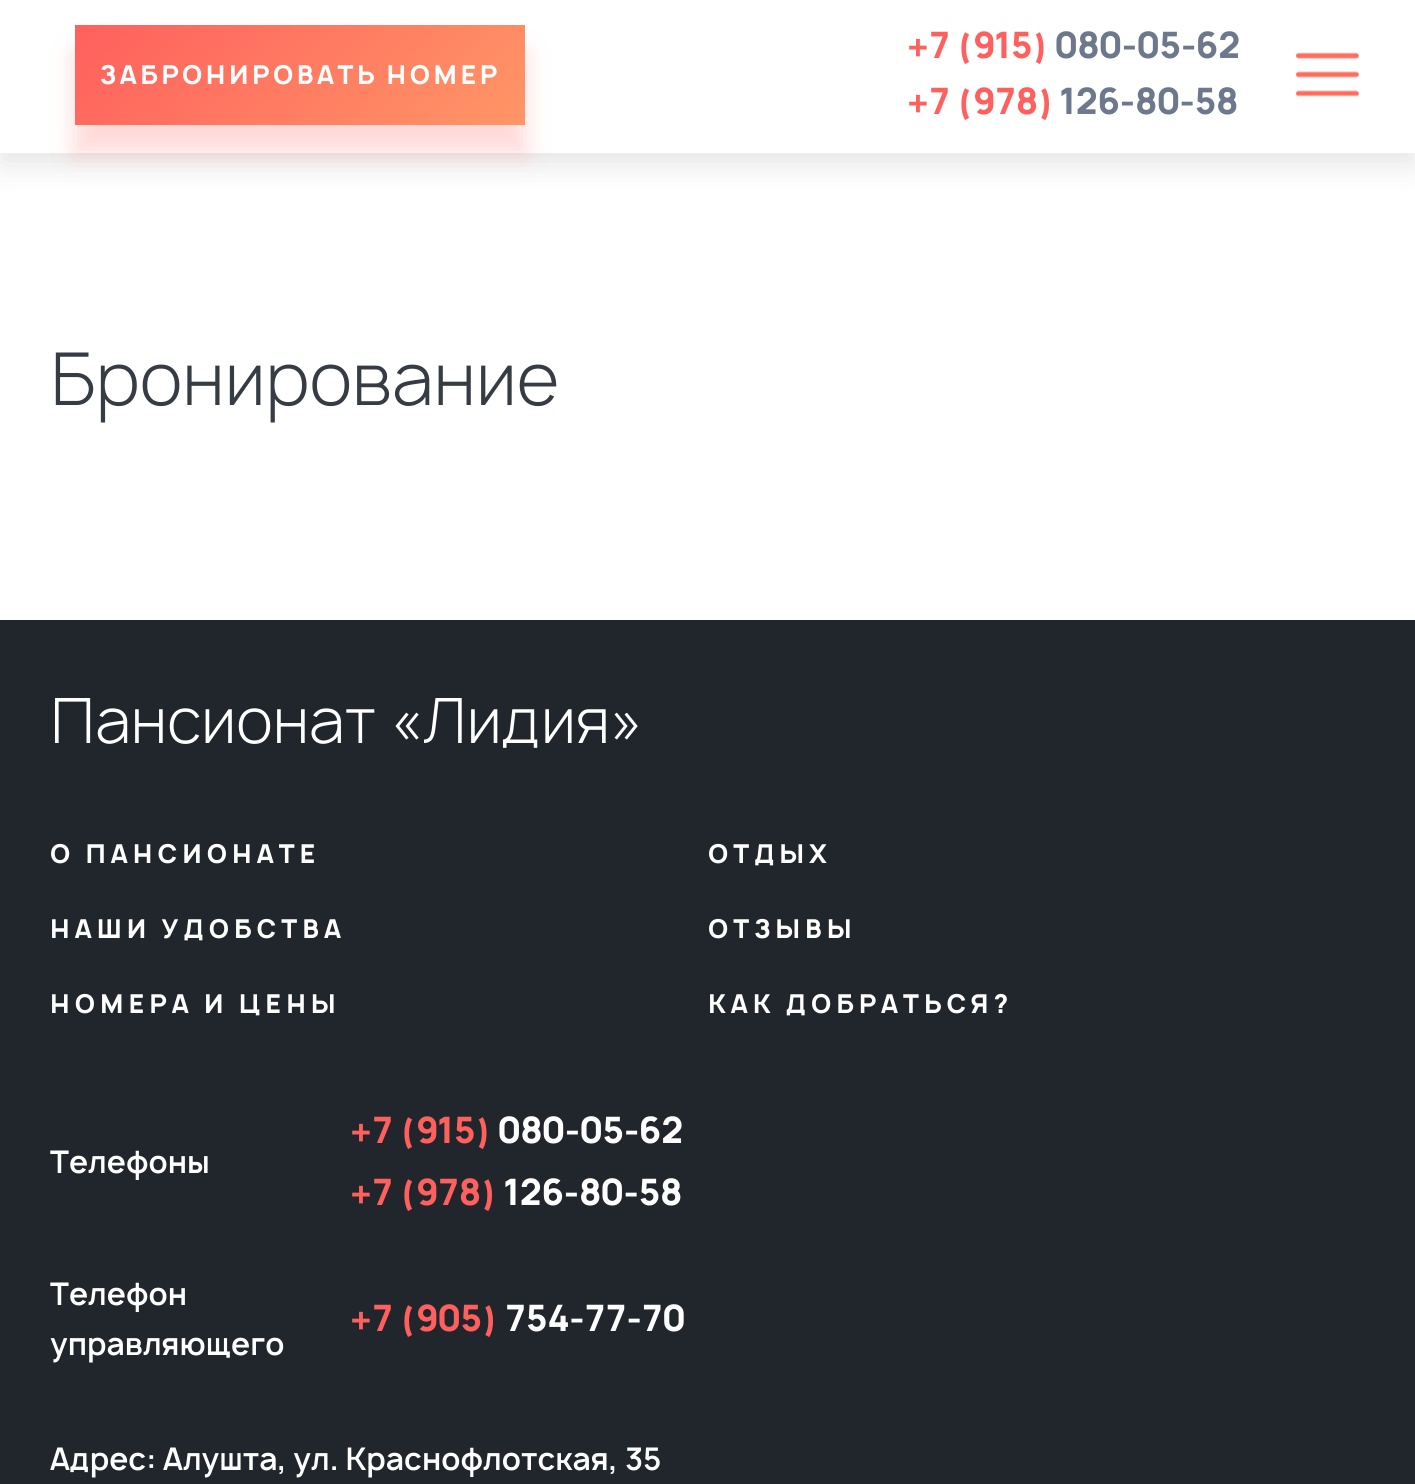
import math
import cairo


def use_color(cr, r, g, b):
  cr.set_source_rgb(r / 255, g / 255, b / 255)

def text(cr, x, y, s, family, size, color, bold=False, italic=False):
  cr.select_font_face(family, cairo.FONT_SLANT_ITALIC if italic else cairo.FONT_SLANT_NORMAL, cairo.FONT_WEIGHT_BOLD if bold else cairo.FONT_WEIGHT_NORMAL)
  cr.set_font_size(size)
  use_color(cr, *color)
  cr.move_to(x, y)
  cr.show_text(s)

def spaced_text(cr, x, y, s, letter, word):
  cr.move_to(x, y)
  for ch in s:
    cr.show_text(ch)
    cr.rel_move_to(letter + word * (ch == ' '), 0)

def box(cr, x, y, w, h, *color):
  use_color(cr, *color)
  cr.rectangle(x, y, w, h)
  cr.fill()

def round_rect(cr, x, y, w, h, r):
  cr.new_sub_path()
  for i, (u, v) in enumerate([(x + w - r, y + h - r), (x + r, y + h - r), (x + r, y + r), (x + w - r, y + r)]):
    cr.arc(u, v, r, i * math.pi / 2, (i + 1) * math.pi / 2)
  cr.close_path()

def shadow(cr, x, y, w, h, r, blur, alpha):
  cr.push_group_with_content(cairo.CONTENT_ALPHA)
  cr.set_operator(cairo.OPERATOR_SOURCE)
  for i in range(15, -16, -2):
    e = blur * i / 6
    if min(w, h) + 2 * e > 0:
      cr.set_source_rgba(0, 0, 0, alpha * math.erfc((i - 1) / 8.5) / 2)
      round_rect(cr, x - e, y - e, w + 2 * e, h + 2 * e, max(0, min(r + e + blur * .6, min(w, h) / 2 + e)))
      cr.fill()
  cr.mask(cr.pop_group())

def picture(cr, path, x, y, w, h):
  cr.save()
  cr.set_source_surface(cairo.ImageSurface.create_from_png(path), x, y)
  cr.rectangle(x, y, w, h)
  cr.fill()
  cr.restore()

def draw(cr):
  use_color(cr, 255, 255, 255)
  cr.paint()
  use_color(cr, 0, 0, 0)
  shadow(cr, 0, 13, 1415, 152, 0, 15, 0.1)
  box(cr, 0, 0, 1415, 153, 255, 255, 255)
  use_color(cr, 255, 96, 93)
  shadow(cr, 75, 53, 450, 100, 0, 12.5, 0.25)
  gradient = cairo.LinearGradient(163, -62, 438, 213)
  gradient.add_color_stop_rgba(0, 1, 0.376, 0.365, 1)
  gradient.add_color_stop_rgba(1, 1, 0.588, 0.4, 1)
  cr.set_source(gradient)
  cr.rectangle(75, 25, 450, 100)
  cr.fill()
  picture(cr, "img_01.png", 1296, 52, 63, 45)
  box(cr, 0, 620, 1415, 864, 33, 38, 45)
  cr.select_font_face("Manrope", cairo.FONT_SLANT_NORMAL, cairo.FONT_WEIGHT_BOLD)
  cr.set_font_size(25)
  use_color(cr, 255, 255, 255)
  spaced_text(cr, 100, 84, "ЗАБРОНИРОВАТЬ НОМЕР", 3.5, 0)
  text(cr, 907, 58, "+7 (915)", "Manrope", 35, (255, 96, 93), bold=True)
  text(cr, 1055, 58, "080-05-62", "Manrope", 35, (109, 120, 140), bold=True)
  text(cr, 907, 114, "+7 (978)", "Manrope", 35, (255, 96, 93), bold=True)
  text(cr, 1060, 114, "126-80-58", "Manrope", 35, (109, 120, 140), bold=True)
  text(cr, 50, 405, "Бронирование", "Manrope Light", 70, (54, 60, 67))
  text(cr, 50, 743, "Пансионат «Лидия»", "Manrope Light", 60, (255, 255, 255))
  cr.select_font_face("Manrope", cairo.FONT_SLANT_NORMAL, cairo.FONT_WEIGHT_BOLD)
  cr.set_font_size(25)
  spaced_text(cr, 50, 863, "О ПАНСИОНАТЕ", 5, 0)
  spaced_text(cr, 708, 863, "ОТДЫХ", 5, 0)
  spaced_text(cr, 50, 938, "НАШИ УДОБСТВА", 5, 0)
  spaced_text(cr, 708, 938, "ОТЗЫВЫ", 5, 0)
  spaced_text(cr, 50, 1013, "НОМЕРА И ЦЕНЫ", 5, 0)
  spaced_text(cr, 708, 1013, "КАК ДОБРАТЬСЯ?", 5, 0)
  text(cr, 50, 1173, "Телефоны", "Manrope SemiBold", 30, (255, 255, 255))
  text(cr, 350, 1143, "+7 (915)", "Manrope", 35, (255, 96, 93), bold=True)
  text(cr, 498, 1143, "080-05-62", "Manrope", 35, (255, 255, 255), bold=True)
  text(cr, 350, 1205, "+7 (978)", "Manrope", 35, (255, 96, 93), bold=True)
  text(cr, 504, 1205, "126-80-58", "Manrope", 35, (255, 255, 255), bold=True)
  text(cr, 50, 1305, "Телефон", "Manrope SemiBold", 30, (255, 255, 255))
  text(cr, 50, 1355, "управляющего", "Manrope SemiBold", 30, (255, 255, 255))
  text(cr, 350, 1331, "+7 (905)", "Manrope", 35, (255, 96, 93), bold=True)
  text(cr, 505, 1331, "754-77-70", "Manrope", 35, (255, 255, 255), bold=True)
  text(cr, 50, 1470, "Адрес: Алушта, ул. Краснофлотская, 35", "Manrope SemiBold", 30, (255, 255, 255))


surface = cairo.ImageSurface(cairo.FORMAT_RGB24, 1415, 1484)
cr = cairo.Context(surface)
options = cairo.FontOptions()
options.set_hint_metrics(cairo.HINT_METRICS_OFF)
options.set_hint_style(cairo.HINT_STYLE_NONE)
cr.set_font_options(options)
cr.set_miter_limit(4)
draw(cr)
surface.write_to_png("out.png")
